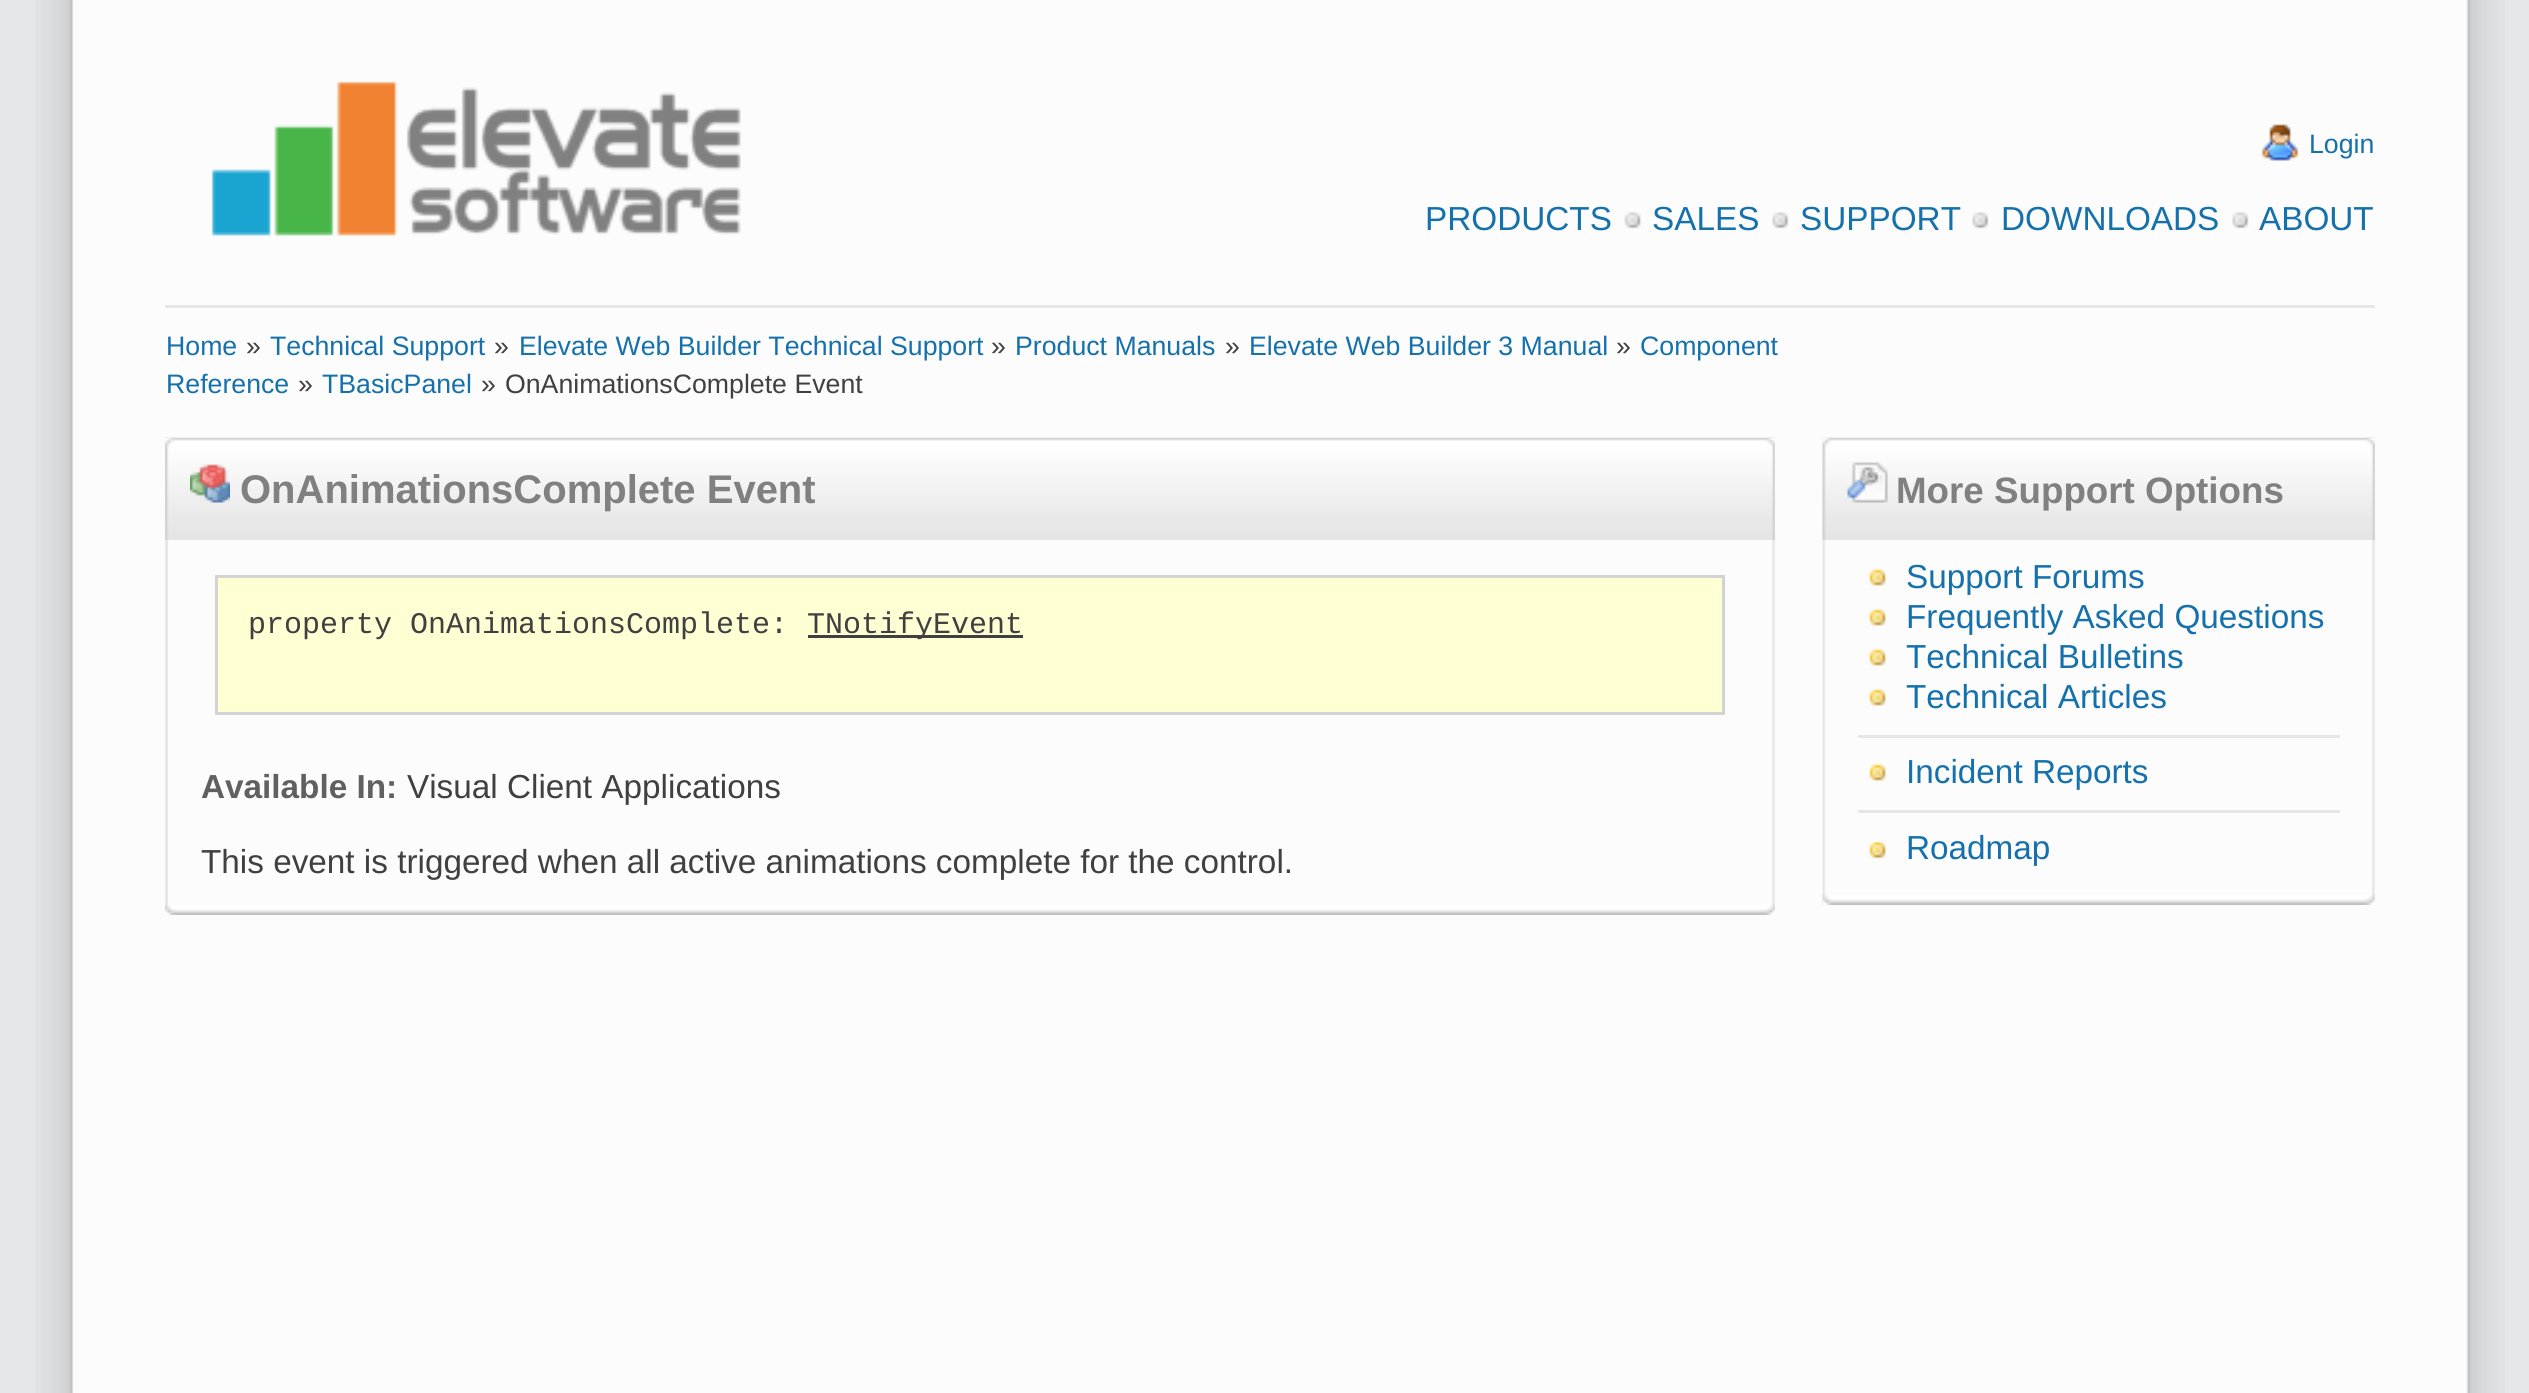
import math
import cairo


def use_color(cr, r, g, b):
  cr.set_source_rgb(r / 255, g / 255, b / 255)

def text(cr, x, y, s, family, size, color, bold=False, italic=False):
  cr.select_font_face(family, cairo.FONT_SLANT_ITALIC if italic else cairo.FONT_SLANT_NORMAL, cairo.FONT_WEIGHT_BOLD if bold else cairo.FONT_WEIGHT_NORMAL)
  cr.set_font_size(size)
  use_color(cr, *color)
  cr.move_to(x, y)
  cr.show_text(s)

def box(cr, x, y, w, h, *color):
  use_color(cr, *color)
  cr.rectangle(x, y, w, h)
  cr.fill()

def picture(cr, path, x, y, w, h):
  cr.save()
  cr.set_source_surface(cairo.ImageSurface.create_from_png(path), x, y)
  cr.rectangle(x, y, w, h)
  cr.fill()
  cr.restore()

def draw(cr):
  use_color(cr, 230, 231, 232)
  cr.paint()
  picture(cr, "img_01.png", 35, 0, 2470, 1393)
  picture(cr, "img_02.png", 211, 81, 530, 155)
  picture(cr, "img_03.png", 2261, 124, 38, 37)
  picture(cr, "img_04.png", 1624, 212, 17, 17)
  picture(cr, "img_05.png", 1772, 212, 17, 17)
  picture(cr, "img_06.png", 1972, 212, 17, 17)
  picture(cr, "img_06.png", 2232, 212, 17, 17)
  box(cr, 165, 305, 2210, 3, 230, 230, 230)
  box(cr, 165, 437, 3, 468, 231, 231, 231)
  box(cr, 1772, 437, 3, 468, 233, 233, 233)
  picture(cr, "img_07.png", 175, 905, 1590, 10)
  picture(cr, "img_08.png", 165, 905, 10, 10)
  picture(cr, "img_09.png", 1765, 905, 10, 10)
  picture(cr, "img_10.png", 165, 437, 1610, 103)
  picture(cr, "img_11.png", 165, 437, 10, 103)
  picture(cr, "img_12.png", 1765, 437, 10, 103)
  picture(cr, "img_13.png", 190, 464, 40, 39)
  use_color(cr, 254, 255, 211)
  cr.rectangle(216.5, 576.5, 1507, 137)
  cr.fill_preserve()
  use_color(cr, 211, 211, 211)
  cr.set_line_width(3)
  cr.stroke()
  box(cr, 808, 635, 215, 3, 64, 64, 64)
  picture(cr, "img_14.png", 1822, 437, 4, 468)
  box(cr, 2372, 437, 3, 458, 233, 233, 233)
  picture(cr, "img_15.png", 1822, 895, 543, 10)
  picture(cr, "img_16.png", 1822, 895, 10, 10)
  picture(cr, "img_17.png", 2365, 895, 10, 10)
  picture(cr, "img_18.png", 1822, 437, 553, 103)
  picture(cr, "img_19.png", 1822, 437, 10, 103)
  picture(cr, "img_20.png", 2365, 437, 10, 103)
  picture(cr, "img_21.png", 1847, 462, 41, 41)
  picture(cr, "img_22.png", 1869, 569, 17, 17)
  picture(cr, "img_22.png", 1869, 609, 17, 17)
  picture(cr, "img_22.png", 1869, 649, 17, 17)
  picture(cr, "img_22.png", 1869, 689, 17, 17)
  box(cr, 1858, 735, 482, 3, 230, 230, 230)
  picture(cr, "img_22.png", 1869, 764, 17, 17)
  box(cr, 1858, 810, 482, 3, 230, 230, 230)
  picture(cr, "img_23.png", 1869, 841, 17, 18)
  text(cr, 2309, 153, "Login", "Liberation Sans", 26.7, (21, 113, 172))
  text(cr, 1425, 230, "PRODUCTS", "Liberation Sans", 33.3, (21, 113, 172))
  text(cr, 1652, 230, "SALES", "Liberation Sans", 33.3, (21, 113, 172))
  text(cr, 1800, 230, "SUPPORT", "Liberation Sans", 33.3, (21, 113, 172))
  text(cr, 2001, 230, "DOWNLOADS", "Liberation Sans", 33.3, (21, 113, 172))
  text(cr, 2259, 230, "ABOUT", "Liberation Sans", 33.3, (21, 113, 172))
  text(cr, 166, 355, "Home", "Liberation Sans", 26.7, (21, 113, 172))
  text(cr, 246, 355, "»", "Liberation Sans", 26.7, (64, 64, 64))
  text(cr, 270, 355, "Technical Support", "Liberation Sans", 26.7, (21, 113, 172))
  text(cr, 494, 355, "»", "Liberation Sans", 26.7, (64, 64, 64))
  text(cr, 519, 355, "Elevate Web Builder Technical Support", "Liberation Sans", 26.7, (21, 113, 172))
  text(cr, 991, 355, "»", "Liberation Sans", 26.7, (64, 64, 64))
  text(cr, 1015, 355, "Product Manuals", "Liberation Sans", 26.7, (21, 113, 172))
  text(cr, 1225, 355, "»", "Liberation Sans", 26.7, (64, 64, 64))
  text(cr, 1249, 355, "Elevate Web Builder 3 Manual", "Liberation Sans", 26.7, (21, 113, 172))
  text(cr, 1616, 355, "»", "Liberation Sans", 26.7, (64, 64, 64))
  text(cr, 1640, 355, "Component", "Liberation Sans", 26.7, (21, 113, 172))
  text(cr, 166, 393, "Reference", "Liberation Sans", 26.7, (21, 113, 172))
  text(cr, 298, 393, "»", "Liberation Sans", 26.7, (64, 64, 64))
  text(cr, 322, 393, "TBasicPanel", "Liberation Sans", 26.7, (21, 113, 172))
  text(cr, 481, 393, "»", "Liberation Sans", 26.7, (64, 64, 64))
  text(cr, 505, 393, "OnAnimationsComplete Event", "Liberation Sans", 26.7, (64, 64, 64))
  text(cr, 240, 503, "OnAnimationsComplete Event", "Liberation Sans", 40, (128, 128, 128), bold=True)
  text(cr, 248, 633, "property OnAnimationsComplete:", "Liberation Mono", 30, (64, 64, 64))
  text(cr, 807, 633, "TNotifyEvent", "Liberation Mono", 30, (64, 64, 64))
  text(cr, 201, 798, "Available In:", "Liberation Sans", 33.3, (96, 96, 96), bold=True)
  text(cr, 407, 798, "Visual Client Applications", "Liberation Sans", 33.3, (64, 64, 64))
  text(cr, 201, 873, "This event is triggered when all active animations complete for the control.", "Liberation Sans", 33.3, (64, 64, 64))
  text(cr, 1896, 503, "More Support Options", "Liberation Sans", 36.75, (128, 128, 128), bold=True)
  text(cr, 1906, 588, "Support Forums", "Liberation Sans", 33.3, (21, 113, 172))
  text(cr, 1906, 628, "Frequently Asked Questions", "Liberation Sans", 33.3, (21, 113, 172))
  text(cr, 1906, 668, "Technical Bulletins", "Liberation Sans", 33.3, (21, 113, 172))
  text(cr, 1906, 708, "Technical Articles", "Liberation Sans", 33.3, (21, 113, 172))
  text(cr, 1906, 783, "Incident Reports", "Liberation Sans", 33.3, (21, 113, 172))
  text(cr, 1906, 859, "Roadmap", "Liberation Sans", 33.3, (21, 113, 172))


surface = cairo.ImageSurface(cairo.FORMAT_RGB24, 2529, 1393)
cr = cairo.Context(surface)
options = cairo.FontOptions()
options.set_hint_metrics(cairo.HINT_METRICS_OFF)
options.set_hint_style(cairo.HINT_STYLE_NONE)
cr.set_font_options(options)
cr.set_miter_limit(4)
draw(cr)
surface.write_to_png("out.png")
